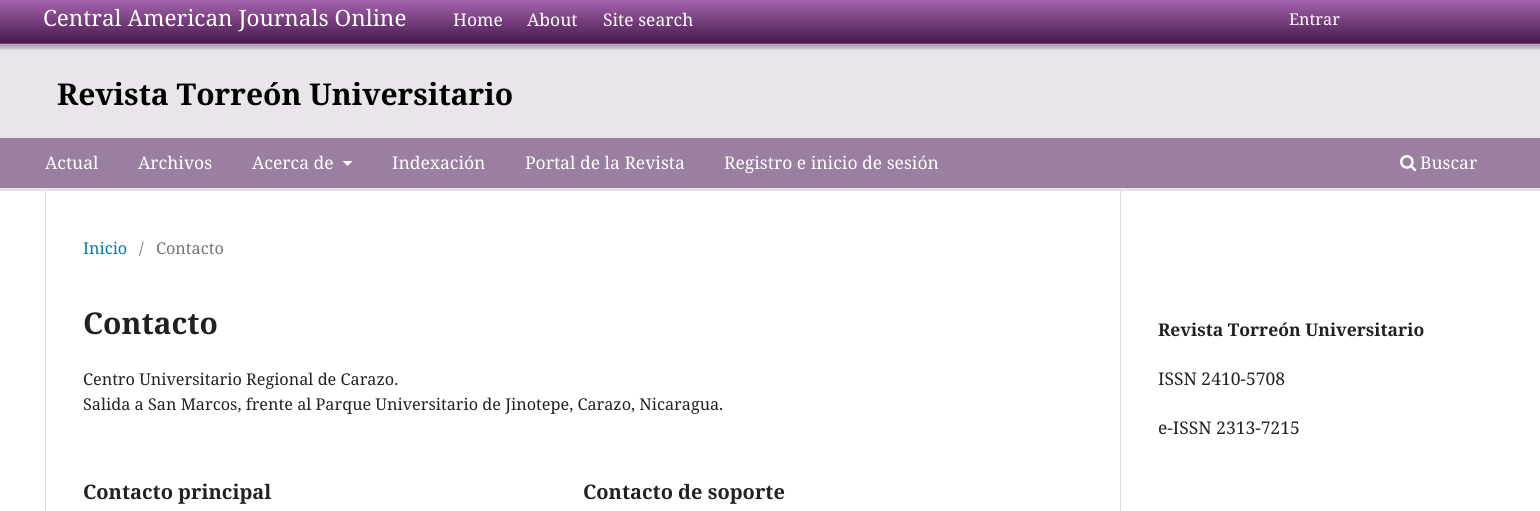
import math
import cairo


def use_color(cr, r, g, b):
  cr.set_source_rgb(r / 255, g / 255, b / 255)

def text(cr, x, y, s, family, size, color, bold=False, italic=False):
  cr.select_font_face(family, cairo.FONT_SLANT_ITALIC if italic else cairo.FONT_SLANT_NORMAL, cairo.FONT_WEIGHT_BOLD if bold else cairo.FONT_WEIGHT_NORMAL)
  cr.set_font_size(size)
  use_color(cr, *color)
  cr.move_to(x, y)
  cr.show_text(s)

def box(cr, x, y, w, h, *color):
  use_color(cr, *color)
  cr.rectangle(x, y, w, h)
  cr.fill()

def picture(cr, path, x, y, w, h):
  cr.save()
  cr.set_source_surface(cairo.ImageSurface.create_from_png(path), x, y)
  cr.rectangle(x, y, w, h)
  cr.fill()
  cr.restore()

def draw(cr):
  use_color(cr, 255, 255, 255)
  cr.paint()
  box(cr, 0, 50, 1540, 140, 234, 228, 235)
  box(cr, 0, 190, 1540, 1, 221, 221, 221)
  picture(cr, "img_01.png", 0, 0, 1540, 50)
  box(cr, 0, 138, 1540, 50, 154, 127, 160)
  use_color(cr, 255, 255, 255)
  cr.new_path()
  cr.move_to(342.5, 161)
  cr.line_to(352.5, 161)
  cr.line_to(347.5, 166)
  cr.close_path()
  cr.fill()
  picture(cr, "img_02.png", 1400, 155, 17, 17)
  box(cr, 45, 191, 1, 320, 221, 221, 221)
  box(cr, 1120, 191, 1, 320, 221, 221, 221)
  text(cr, 43, 26, "Central American Journals Online", "Noto Serif", 22.5, (255, 255, 255))
  text(cr, 453, 26, "Home", "Noto Serif", 17.5, (255, 255, 255))
  text(cr, 527, 26, "About", "Noto Serif", 17.5, (255, 255, 255))
  text(cr, 603, 26, "Site search", "Noto Serif", 17.5, (255, 255, 255))
  text(cr, 1289, 25, "Entrar", "Noto Serif", 16.25, (255, 255, 255))
  text(cr, 45, 169, "Actual", "Noto Serif", 17.5, (255, 255, 255))
  text(cr, 138, 169, "Archivos", "Noto Serif", 17.5, (255, 255, 255))
  text(cr, 252, 169, "Acerca de", "Noto Serif", 17.5, (255, 255, 255))
  text(cr, 392, 169, "Indexación", "Noto Serif", 17.5, (255, 255, 255))
  text(cr, 525, 169, "Portal de la Revista", "Noto Serif", 17.5, (255, 255, 255))
  text(cr, 724, 169, "Registro e inicio de sesión", "Noto Serif", 17.5, (255, 255, 255))
  text(cr, 1420, 169, "Buscar", "Noto Serif", 17.5, (255, 255, 255))
  text(cr, 57, 105, "Revista Torreón Universitario", "Noto Serif", 30, (0, 0, 0), bold=True)
  text(cr, 83, 254, "Inicio", "Noto Serif", 16.25, (0, 122, 178))
  text(cr, 139, 254, "/", "Noto Serif", 16.25, (117, 117, 117))
  text(cr, 156, 254, "Contacto", "Noto Serif", 16.25, (117, 117, 117))
  text(cr, 83, 334, "Contacto", "Noto Serif", 30, (33, 33, 33), bold=True)
  text(cr, 83, 385, "Centro Universitario Regional de Carazo.", "Noto Serif", 16.25, (33, 33, 33))
  text(cr, 83, 410, "Salida a San Marcos, frente al Parque Universitario de Jinotepe, Carazo, Nicaragua.", "Noto Serif", 16.25, (33, 33, 33))
  text(cr, 83, 499, "Contacto principal", "Noto Serif", 20, (33, 33, 33), bold=True)
  text(cr, 583, 499, "Contacto de soporte", "Noto Serif", 20, (33, 33, 33), bold=True)
  text(cr, 1158, 336, "Revista Torreón Universitario", "Noto Serif", 17.5, (33, 33, 33), bold=True)
  text(cr, 1158, 385, "ISSN 2410-5708", "Noto Serif", 17.5, (33, 33, 33))
  text(cr, 1158, 434, "e-ISSN 2313-7215", "Noto Serif", 17.5, (33, 33, 33))


surface = cairo.ImageSurface(cairo.FORMAT_RGB24, 1540, 511)
cr = cairo.Context(surface)
options = cairo.FontOptions()
options.set_hint_metrics(cairo.HINT_METRICS_OFF)
options.set_hint_style(cairo.HINT_STYLE_NONE)
cr.set_font_options(options)
cr.set_miter_limit(4)
draw(cr)
surface.write_to_png("out.png")
